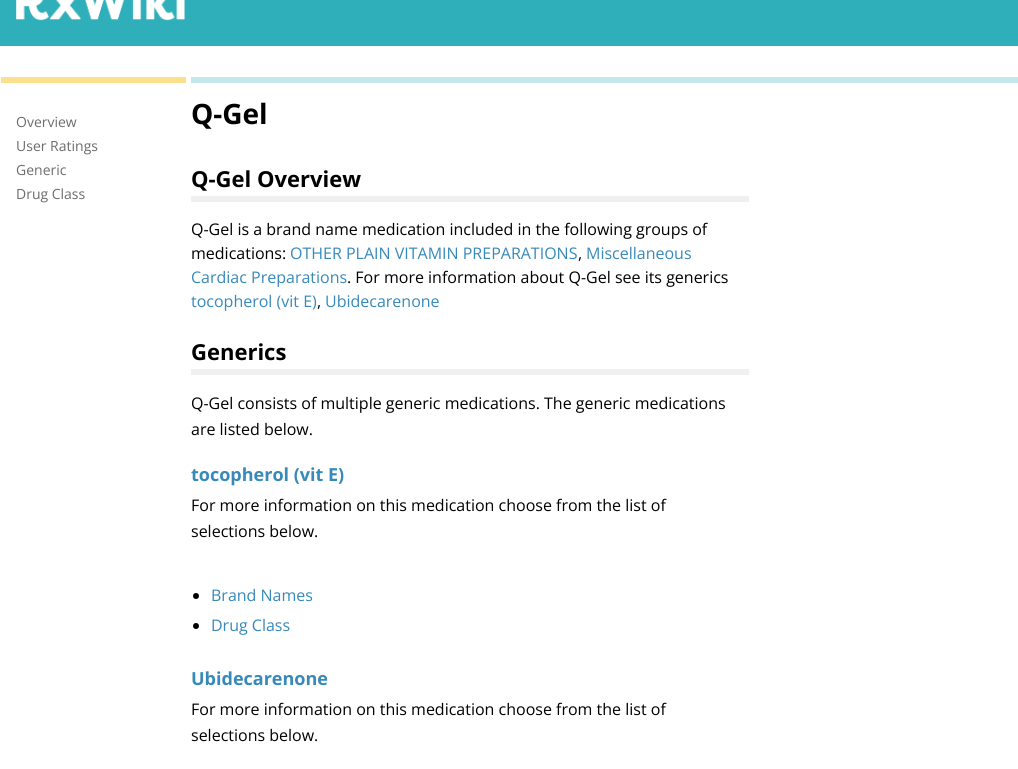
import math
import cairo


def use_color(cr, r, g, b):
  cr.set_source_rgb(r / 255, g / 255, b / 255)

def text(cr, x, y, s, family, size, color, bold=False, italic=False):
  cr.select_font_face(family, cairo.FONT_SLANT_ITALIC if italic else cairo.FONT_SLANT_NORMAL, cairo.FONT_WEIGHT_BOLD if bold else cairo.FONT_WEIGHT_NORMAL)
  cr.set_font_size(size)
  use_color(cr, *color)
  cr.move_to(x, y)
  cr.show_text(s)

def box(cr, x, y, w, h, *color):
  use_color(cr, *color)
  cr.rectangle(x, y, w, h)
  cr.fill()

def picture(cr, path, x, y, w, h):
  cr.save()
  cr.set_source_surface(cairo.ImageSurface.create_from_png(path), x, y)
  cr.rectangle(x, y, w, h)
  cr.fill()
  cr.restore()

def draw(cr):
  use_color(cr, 255, 255, 255)
  cr.paint()
  box(cr, 0, 0, 1018, 46, 47, 175, 185)
  picture(cr, "img_01.png", 16, 0, 169, 21)
  box(cr, 1, 77, 185, 6, 251, 225, 141)
  box(cr, 191, 77, 827, 6, 194, 232, 235)
  box(cr, 191, 196, 558, 6, 240, 240, 240)
  box(cr, 191, 369, 558, 6, 240, 240, 240)
  use_color(cr, 0, 0, 0)
  cr.arc(196, 596, 3, 0, 2 * math.pi)
  cr.fill()
  cr.arc(196, 626, 3, 0, 2 * math.pi)
  cr.fill()
  text(cr, 16, 127, "Overview", "Open Sans", 14, (108, 108, 108))
  text(cr, 16, 151, "User Ratings", "Open Sans", 14, (108, 108, 108))
  text(cr, 16, 175, "Generic", "Open Sans", 14, (108, 108, 108))
  text(cr, 16, 199, "Drug Class", "Open Sans", 14, (108, 108, 108))
  text(cr, 191, 124, "Q-Gel", "Open Sans", 28, (0, 0, 0), bold=True)
  text(cr, 191, 187, "Q-Gel Overview", "Open Sans", 22, (0, 0, 0), bold=True)
  text(cr, 191, 235, "Q-Gel is a brand name medication included in the following groups of", "Open Sans", 16, (0, 0, 0))
  text(cr, 191, 259, "medications:", "Open Sans", 16, (0, 0, 0))
  text(cr, 290, 259, "OTHER PLAIN VITAMIN PREPARATIONS", "Open Sans", 16, (55, 137, 185))
  text(cr, 578, 259, ",", "Open Sans", 16, (0, 0, 0))
  text(cr, 586, 259, "Miscellaneous", "Open Sans", 16, (55, 137, 185))
  text(cr, 191, 283, "Cardiac Preparations", "Open Sans", 16, (55, 137, 185))
  text(cr, 347, 283, ". For more information about Q-Gel see its generics", "Open Sans", 16, (0, 0, 0))
  text(cr, 191, 307, "tocopherol (vit E)", "Open Sans", 16, (55, 137, 185))
  text(cr, 317, 307, ",", "Open Sans", 16, (0, 0, 0))
  text(cr, 325, 307, "Ubidecarenone", "Open Sans", 16, (55, 137, 185))
  text(cr, 191, 360, "Generics", "Open Sans", 22, (0, 0, 0), bold=True)
  text(cr, 191, 409, "Q-Gel consists of multiple generic medications. The generic medications", "Open Sans", 16, (0, 0, 0))
  text(cr, 191, 435, "are listed below.", "Open Sans", 16, (0, 0, 0))
  text(cr, 191, 481, "tocopherol (vit E)", "Open Sans", 18, (55, 137, 185), bold=True)
  text(cr, 191, 511, "For more information on this medication choose from the list of", "Open Sans", 16, (0, 0, 0))
  text(cr, 191, 537, "selections below.", "Open Sans", 16, (0, 0, 0))
  text(cr, 211, 601, "Brand Names", "Open Sans", 16, (55, 137, 185))
  text(cr, 211, 631, "Drug Class", "Open Sans", 16, (55, 137, 185))
  text(cr, 191, 685, "Ubidecarenone", "Open Sans", 18, (55, 137, 185), bold=True)
  text(cr, 191, 715, "For more information on this medication choose from the list of", "Open Sans", 16, (0, 0, 0))
  text(cr, 191, 741, "selections below.", "Open Sans", 16, (0, 0, 0))


surface = cairo.ImageSurface(cairo.FORMAT_RGB24, 1018, 769)
cr = cairo.Context(surface)
options = cairo.FontOptions()
options.set_hint_metrics(cairo.HINT_METRICS_OFF)
options.set_hint_style(cairo.HINT_STYLE_NONE)
cr.set_font_options(options)
cr.set_miter_limit(4)
draw(cr)
surface.write_to_png("out.png")
